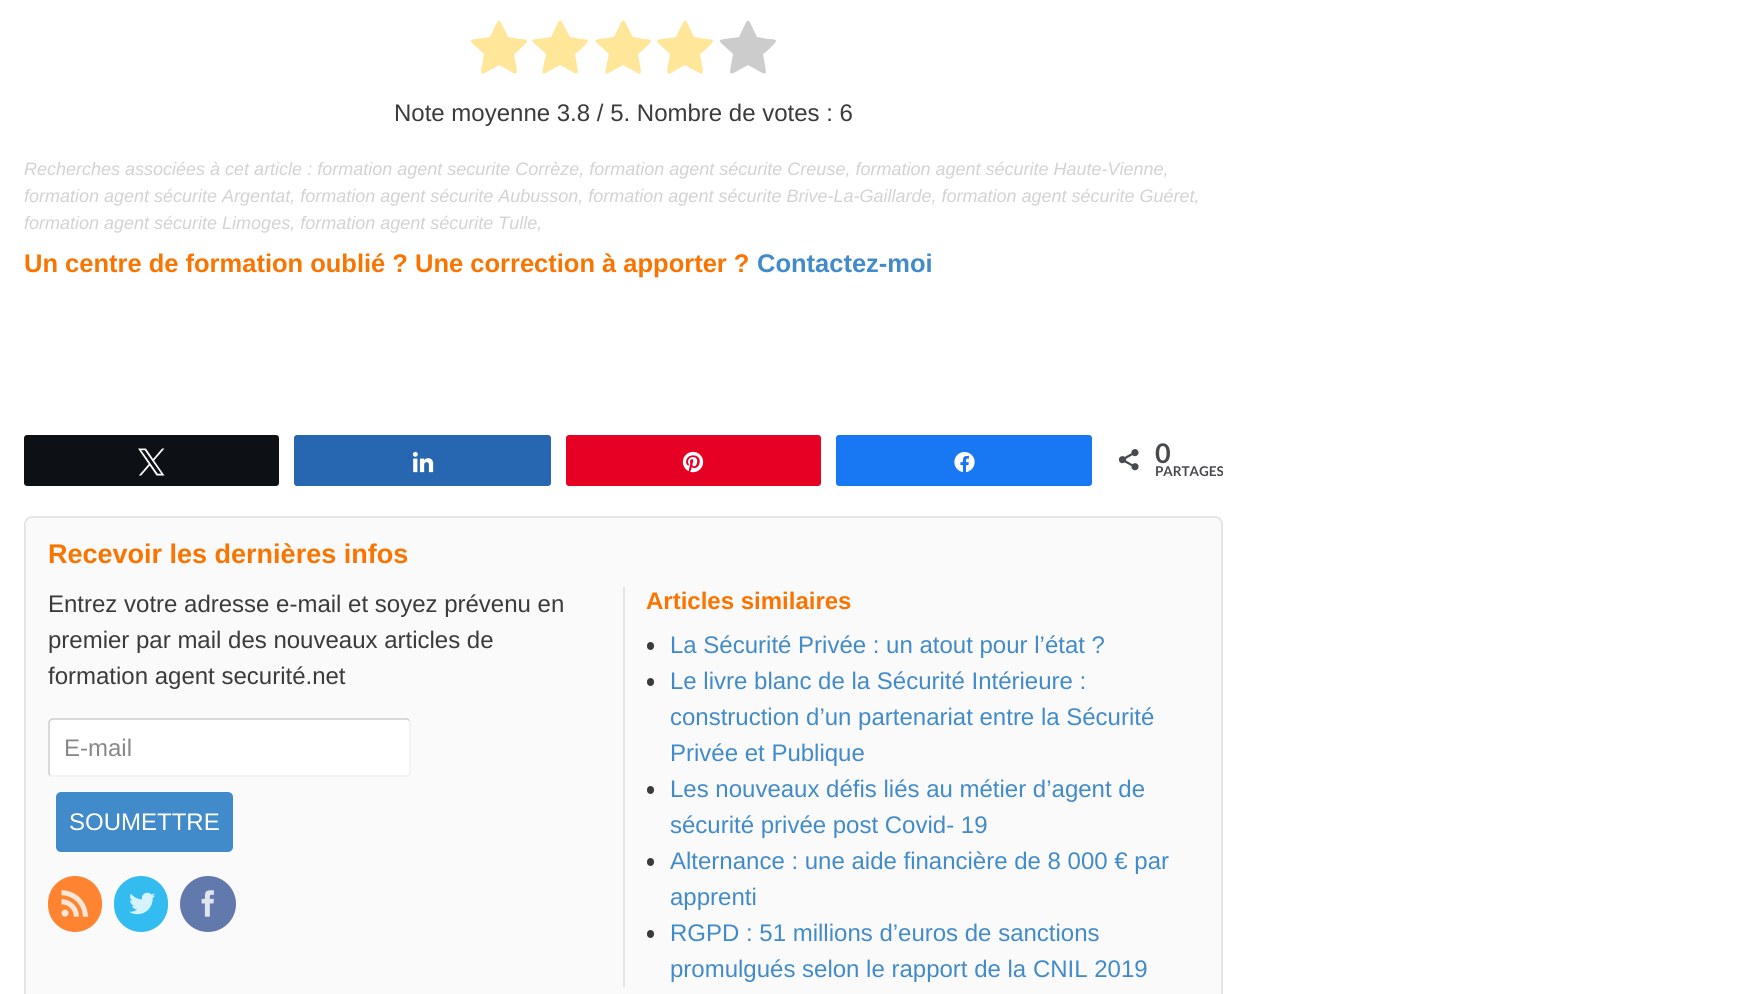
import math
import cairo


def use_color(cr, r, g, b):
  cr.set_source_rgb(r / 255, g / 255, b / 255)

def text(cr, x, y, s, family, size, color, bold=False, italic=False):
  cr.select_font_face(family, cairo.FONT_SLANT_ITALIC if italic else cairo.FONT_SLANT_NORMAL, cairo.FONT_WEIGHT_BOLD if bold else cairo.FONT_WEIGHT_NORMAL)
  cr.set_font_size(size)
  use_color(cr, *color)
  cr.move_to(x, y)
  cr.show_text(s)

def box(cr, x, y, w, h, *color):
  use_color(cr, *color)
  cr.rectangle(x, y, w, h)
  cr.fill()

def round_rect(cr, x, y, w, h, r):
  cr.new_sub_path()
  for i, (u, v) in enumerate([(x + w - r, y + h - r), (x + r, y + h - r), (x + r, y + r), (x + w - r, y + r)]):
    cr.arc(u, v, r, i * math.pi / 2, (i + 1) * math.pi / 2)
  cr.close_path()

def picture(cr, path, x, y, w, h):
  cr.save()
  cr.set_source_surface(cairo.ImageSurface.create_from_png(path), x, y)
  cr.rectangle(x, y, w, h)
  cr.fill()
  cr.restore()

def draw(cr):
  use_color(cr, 255, 255, 255)
  cr.paint()
  use_color(cr, 255, 230, 153)
  cr.new_path()
  cr.move_to(527, 41)
  cr.curve_to(527, 43, 516, 53, 514, 54)
  cr.curve_to(518, 79, 521, 77, 499, 65)
  cr.curve_to(477, 77, 480, 79, 484, 54)
  cr.curve_to(466, 37, 465, 41, 490, 37)
  cr.curve_to(501, 15, 497, 15, 508, 37)
  cr.line_to(519, 39)
  cr.curve_to(520, 39, 527, 39, 527, 41)
  cr.close_path()
  cr.fill()
  cr.new_path()
  cr.move_to(588, 41)
  cr.curve_to(588, 43, 577, 53, 575, 54)
  cr.curve_to(579, 79, 582, 77, 560, 65)
  cr.curve_to(538, 77, 541, 79, 546, 54)
  cr.curve_to(528, 37, 526, 41, 551, 37)
  cr.curve_to(562, 15, 558, 15, 570, 37)
  cr.line_to(581, 39)
  cr.curve_to(581, 39, 588, 39, 588, 41)
  cr.close_path()
  cr.fill()
  cr.new_path()
  cr.move_to(651, 41)
  cr.curve_to(651, 43, 640, 53, 638, 54)
  cr.curve_to(642, 79, 645, 77, 623, 65)
  cr.curve_to(601, 77, 604, 79, 609, 54)
  cr.curve_to(591, 37, 589, 41, 614, 37)
  cr.curve_to(625, 15, 621, 15, 633, 37)
  cr.line_to(644, 39)
  cr.curve_to(644, 39, 651, 39, 651, 41)
  cr.close_path()
  cr.fill()
  cr.new_path()
  cr.move_to(713, 41)
  cr.curve_to(713, 43, 702, 53, 700, 54)
  cr.curve_to(704, 79, 707, 77, 685, 65)
  cr.curve_to(663, 77, 666, 79, 670, 54)
  cr.curve_to(652, 37, 651, 41, 676, 37)
  cr.curve_to(687, 15, 683, 15, 694, 37)
  cr.line_to(705, 39)
  cr.curve_to(706, 39, 713, 39, 713, 41)
  cr.close_path()
  cr.fill()
  use_color(cr, 204, 204, 204)
  cr.new_path()
  cr.move_to(776, 41)
  cr.curve_to(776, 43, 765, 53, 763, 54)
  cr.curve_to(767, 79, 770, 77, 748, 65)
  cr.curve_to(726, 77, 729, 79, 733, 54)
  cr.curve_to(715, 37, 714, 41, 739, 37)
  cr.curve_to(750, 15, 746, 15, 757, 37)
  cr.line_to(768, 39)
  cr.curve_to(769, 39, 776, 39, 776, 41)
  cr.close_path()
  cr.fill()
  use_color(cr, 13, 16, 20)
  round_rect(cr, 25, 436, 253, 49, 2)
  cr.fill_preserve()
  cr.stroke()
  picture(cr, "img_01.png", 138, 448, 27, 28)
  use_color(cr, 39, 103, 177)
  round_rect(cr, 295, 436, 255, 49, 2)
  cr.fill_preserve()
  cr.stroke()
  picture(cr, "img_02.png", 412, 451, 22, 22)
  use_color(cr, 230, 0, 35)
  round_rect(cr, 567, 436, 253, 49, 2)
  cr.fill_preserve()
  cr.stroke()
  picture(cr, "img_03.png", 682, 451, 22, 22)
  use_color(cr, 24, 119, 242)
  round_rect(cr, 837, 436, 254, 49, 2)
  cr.fill_preserve()
  cr.stroke()
  picture(cr, "img_04.png", 954, 452, 21, 21)
  picture(cr, "img_05.png", 1118, 449, 21, 22)
  use_color(cr, 250, 250, 250)
  round_rect(cr, 25, 517, 1197, 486, 7)
  cr.fill_preserve()
  use_color(cr, 230, 230, 230)
  cr.stroke()
  use_color(cr, 255, 255, 255)
  round_rect(cr, 48, 719, 363, 58, 5)
  cr.fill()
  cr.new_path()
  cr.move_to(409, 720.5)
  cr.curve_to(410, 721, 410, 722, 410, 723)
  cr.line_to(410, 772.5)
  cr.curve_to(410, 773.5, 410, 774.5, 409, 775)
  cr.curve_to(408.5, 776, 407.5, 776, 406.5, 776)
  cr.line_to(52.5, 776)
  cr.curve_to(51.5, 776, 50.5, 776, 50, 775)
  use_color(cr, 239, 239, 239)
  cr.set_line_width(1.5)
  cr.stroke()
  cr.new_path()
  cr.move_to(50, 775)
  cr.curve_to(49, 774.5, 49, 773.5, 49, 772.5)
  cr.line_to(49, 723)
  cr.curve_to(49, 722, 49, 721, 50, 720.5)
  cr.curve_to(50.5, 719.5, 51.5, 719, 52.5, 719)
  cr.line_to(406.5, 719)
  cr.curve_to(407.5, 719, 408.5, 719.5, 409, 720.5)
  use_color(cr, 204, 204, 204)
  cr.stroke()
  use_color(cr, 66, 139, 202)
  round_rect(cr, 56, 792, 177, 60, 5)
  cr.fill()
  use_color(cr, 254, 132, 50)
  round_rect(cr, 48, 876, 54, 56, 27)
  cr.fill()
  picture(cr, "img_06.png", 61, 890, 27, 27)
  use_color(cr, 50, 188, 240)
  round_rect(cr, 114, 876, 54, 56, 27)
  cr.fill()
  picture(cr, "img_07.png", 129, 892, 27, 23)
  use_color(cr, 97, 121, 172)
  cr.arc(208, 904, 28, 0, 2 * math.pi)
  cr.fill()
  picture(cr, "img_08.png", 201, 890, 13, 27)
  box(cr, 623, 587, 2, 400, 230, 230, 230)
  use_color(cr, 59, 59, 59)
  round_rect(cr, 647, 642, 7, 8, 3.5)
  cr.fill()
  round_rect(cr, 647, 678, 7, 8, 3.5)
  cr.fill()
  round_rect(cr, 647, 786, 7, 8, 3.5)
  cr.fill()
  round_rect(cr, 647, 858, 7, 8, 3.5)
  cr.fill()
  round_rect(cr, 647, 930, 7, 8, 3.5)
  cr.fill()
  text(cr, 394, 121, "Note moyenne 3.8 / 5. Nombre de votes : 6", "Liberation Sans", 24, (59, 59, 59))
  text(cr, 24, 175, "Recherches associées à cet article : formation agent securite Corrèze, formation agent sécurite Creuse, formation agent sécurite Haute-Vienne,", "Liberation Sans", 18, (212, 210, 212), italic=True)
  text(cr, 24, 202, "formation agent sécurite Argentat, formation agent sécurite Aubusson, formation agent sécurite Brive-La-Gaillarde, formation agent sécurite Guéret,", "Liberation Sans", 18, (212, 210, 212), italic=True)
  text(cr, 24, 229, "formation agent sécurite Limoges, formation agent sécurite Tulle,", "Liberation Sans", 18, (212, 210, 212), italic=True)
  text(cr, 24, 272, "Un centre de formation oublié ? Une correction à apporter ?", "Liberation Sans", 25.5, (249, 116, 0), bold=True)
  text(cr, 757, 272, "Contactez-moi", "Liberation Sans", 25.5, (66, 139, 202), bold=True)
  text(cr, 1155, 463, "0", "Lato", 27, (71, 75, 77), bold=True)
  text(cr, 1155, 476, "PARTAGES", "Lato", 13.5, (71, 75, 77), bold=True)
  text(cr, 48, 563, "Recevoir les dernières infos", "Liberation Sans", 27, (249, 116, 0), bold=True)
  text(cr, 48, 612, "Entrez votre adresse e-mail et soyez prévenu en", "Liberation Sans", 24, (59, 59, 59))
  text(cr, 48, 648, "premier par mail des nouveaux articles de", "Liberation Sans", 24, (59, 59, 59))
  text(cr, 48, 684, "formation agent securité.net", "Liberation Sans", 24, (59, 59, 59))
  text(cr, 64, 756, "E-mail", "Liberation Sans", 24, (136, 136, 136))
  text(cr, 69, 830, "SOUMETTRE", "Liberation Sans", 24, (255, 255, 255))
  text(cr, 646, 609, "Articles similaires", "Liberation Sans", 24, (249, 116, 0), bold=True)
  text(cr, 670, 653, "La Sécurité Privée : un atout pour l’état ?", "Liberation Sans", 24, (66, 139, 202))
  text(cr, 670, 689, "Le livre blanc de la Sécurité Intérieure :", "Liberation Sans", 24, (66, 139, 202))
  text(cr, 670, 725, "construction d’un partenariat entre la Sécurité", "Liberation Sans", 24, (66, 139, 202))
  text(cr, 670, 761, "Privée et Publique", "Liberation Sans", 24, (66, 139, 202))
  text(cr, 670, 797, "Les nouveaux défis liés au métier d’agent de", "Liberation Sans", 24, (66, 139, 202))
  text(cr, 670, 833, "sécurité privée post Covid- 19", "Liberation Sans", 24, (66, 139, 202))
  text(cr, 670, 869, "Alternance : une aide financière de 8 000 € par", "Liberation Sans", 24, (66, 139, 202))
  text(cr, 670, 905, "apprenti", "Liberation Sans", 24, (66, 139, 202))
  text(cr, 670, 941, "RGPD : 51 millions d’euros de sanctions", "Liberation Sans", 24, (66, 139, 202))
  text(cr, 670, 977, "promulgués selon le rapport de la CNIL 2019", "Liberation Sans", 24, (66, 139, 202))


surface = cairo.ImageSurface(cairo.FORMAT_RGB24, 1750, 994)
cr = cairo.Context(surface)
options = cairo.FontOptions()
options.set_hint_metrics(cairo.HINT_METRICS_OFF)
options.set_hint_style(cairo.HINT_STYLE_NONE)
cr.set_font_options(options)
cr.set_miter_limit(4)
draw(cr)
surface.write_to_png("out.png")
